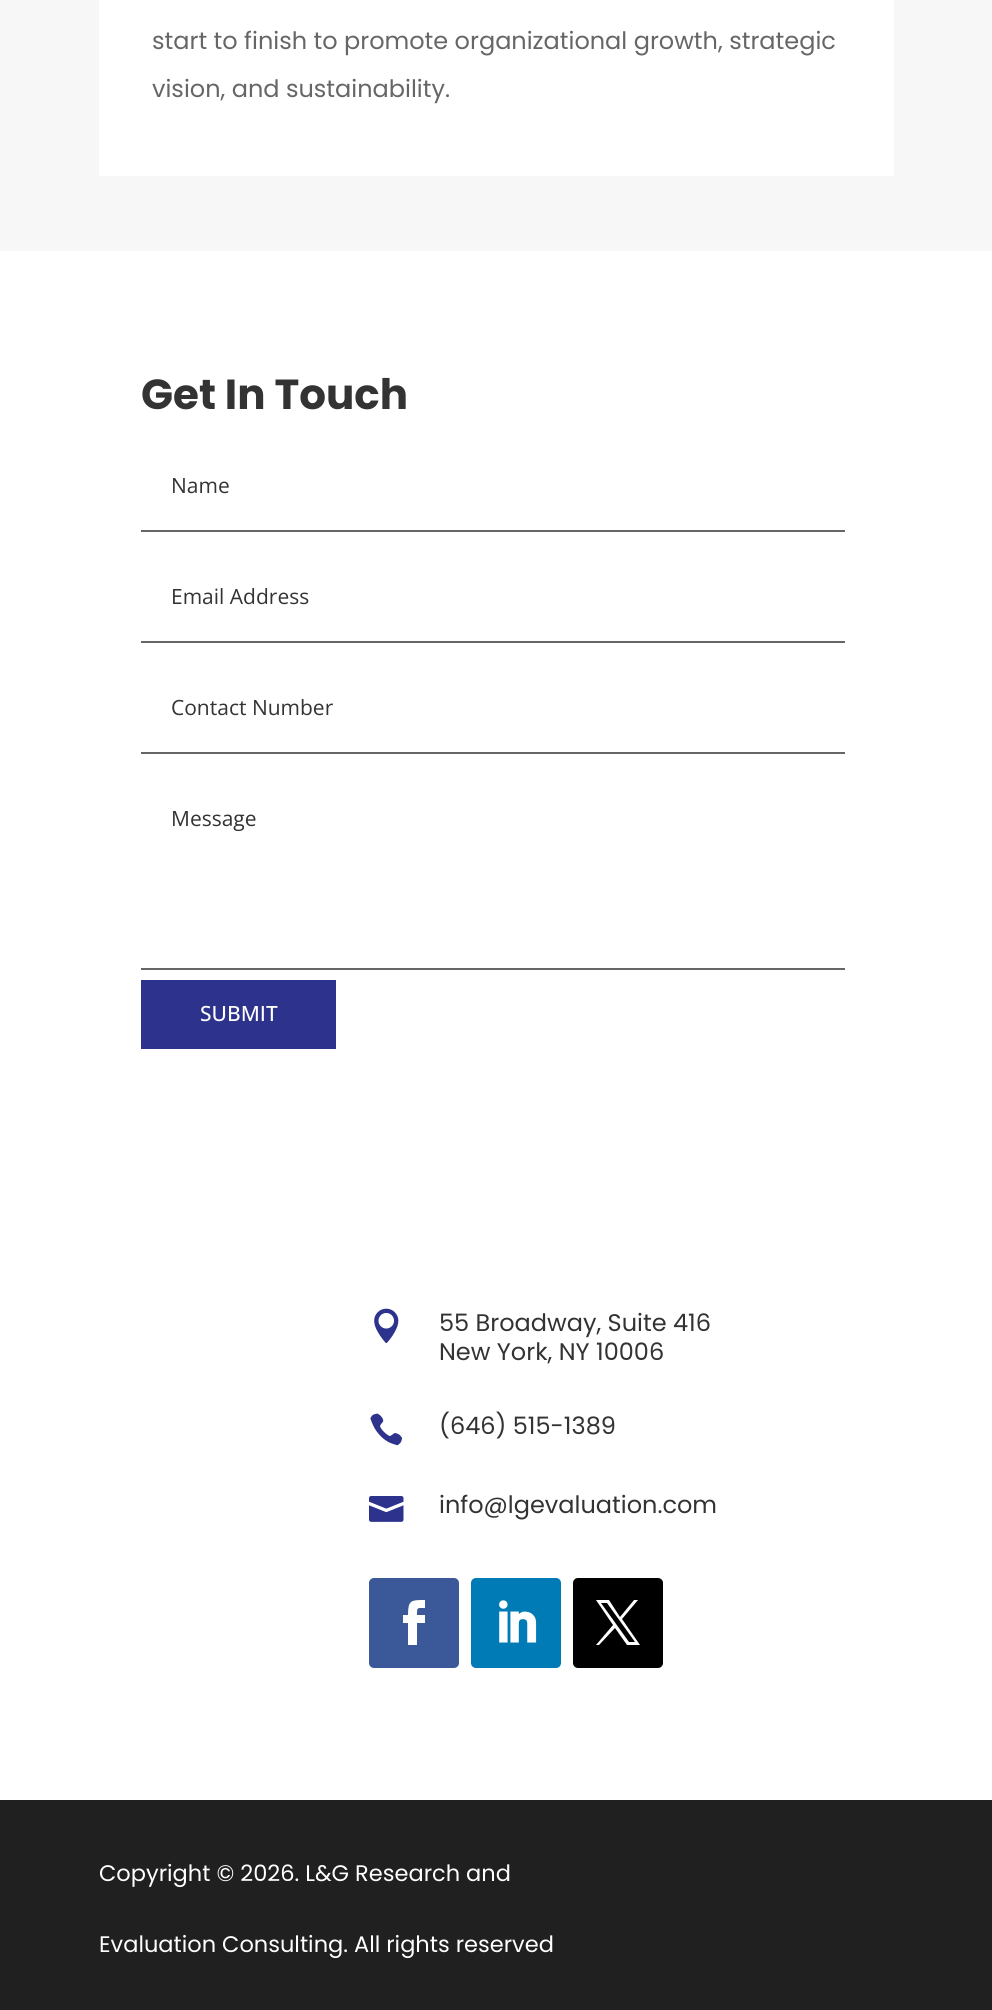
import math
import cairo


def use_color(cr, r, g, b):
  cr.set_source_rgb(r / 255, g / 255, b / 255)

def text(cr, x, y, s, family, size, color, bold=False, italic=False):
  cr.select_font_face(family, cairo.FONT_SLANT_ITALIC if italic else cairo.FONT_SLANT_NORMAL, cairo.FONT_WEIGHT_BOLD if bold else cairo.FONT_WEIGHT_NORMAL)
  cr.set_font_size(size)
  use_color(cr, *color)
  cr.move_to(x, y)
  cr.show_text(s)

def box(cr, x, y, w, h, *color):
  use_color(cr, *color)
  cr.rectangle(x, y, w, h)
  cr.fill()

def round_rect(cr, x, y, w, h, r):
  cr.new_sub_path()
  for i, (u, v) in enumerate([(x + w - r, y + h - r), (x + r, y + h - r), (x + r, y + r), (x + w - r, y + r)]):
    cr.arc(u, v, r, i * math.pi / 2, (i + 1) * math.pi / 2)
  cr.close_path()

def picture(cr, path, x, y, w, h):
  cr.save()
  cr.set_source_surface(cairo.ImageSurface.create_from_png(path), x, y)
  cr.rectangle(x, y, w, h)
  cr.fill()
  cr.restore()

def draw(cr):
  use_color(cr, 255, 255, 255)
  cr.paint()
  box(cr, 0, 0, 992, 251, 247, 247, 247)
  box(cr, 99, 0, 795, 176, 255, 255, 255)
  box(cr, 141, 530, 704, 2, 102, 102, 102)
  box(cr, 141, 641, 704, 2, 102, 102, 102)
  box(cr, 141, 752, 704, 2, 102, 102, 102)
  box(cr, 141, 968, 704, 2, 102, 102, 102)
  box(cr, 141, 980, 195, 69, 45, 51, 140)
  picture(cr, "img_01.png", 374, 1308, 25, 36)
  picture(cr, "img_02.png", 370, 1413, 32, 33)
  picture(cr, "img_03.png", 369, 1496, 35, 26)
  use_color(cr, 59, 89, 152)
  round_rect(cr, 369, 1578, 90, 90, 5)
  cr.fill()
  use_color(cr, 255, 255, 255)
  cr.new_path()
  cr.move_to(408, 1645)
  cr.line_to(417, 1645)
  cr.line_to(417, 1623)
  cr.line_to(425, 1623)
  cr.line_to(425, 1615)
  cr.line_to(417, 1615)
  cr.curve_to(417, 1607, 417, 1608, 425, 1608)
  cr.line_to(425, 1600)
  cr.curve_to(411, 1600, 408, 1600, 408, 1615)
  cr.line_to(403, 1615)
  cr.line_to(403, 1623)
  cr.line_to(408, 1623)
  cr.close_path()
  cr.fill()
  use_color(cr, 0, 123, 182)
  round_rect(cr, 471, 1578, 90, 90, 5)
  cr.fill()
  picture(cr, "img_04.png", 499, 1600, 38, 43)
  use_color(cr, 0, 0, 0)
  round_rect(cr, 573, 1578, 90, 90, 5)
  cr.fill()
  use_color(cr, 255, 255, 255)
  cr.new_path()
  cr.move_to(596, 1600)
  cr.line_to(613, 1625)
  cr.line_to(596, 1645)
  cr.line_to(599, 1645)
  cr.line_to(615, 1628)
  cr.line_to(627, 1645)
  cr.line_to(640, 1645)
  cr.line_to(622, 1619)
  cr.line_to(638, 1600)
  cr.line_to(634, 1600)
  cr.line_to(620, 1617)
  cr.line_to(609, 1600)
  cr.close_path()
  cr.move_to(601, 1603)
  cr.line_to(607, 1603)
  cr.line_to(635, 1642)
  cr.line_to(629, 1642)
  cr.close_path()
  cr.fill()
  box(cr, 0, 1800, 992, 210, 32, 32, 32)
  text(cr, 152, 49, "start to finish to promote organizational growth, strategic", "Poppins", 24, (102, 102, 102))
  text(cr, 152, 97, "vision, and sustainability.", "Poppins", 24, (102, 102, 102))
  text(cr, 141, 409, "Get In Touch", "Poppins", 42, (51, 51, 51), bold=True)
  text(cr, 171, 493, "Name", "Open Sans", 21, (51, 51, 51))
  text(cr, 171, 604, "Email Address", "Open Sans", 21, (51, 51, 51))
  text(cr, 171, 715, "Contact Number", "Open Sans", 21, (51, 51, 51))
  text(cr, 171, 826, "Message", "Open Sans", 21, (51, 51, 51))
  text(cr, 200, 1021, "SUBMIT", "Open Sans Medium", 21, (255, 255, 255))
  text(cr, 439, 1331, "55 Broadway, Suite 416", "Poppins", 24, (51, 51, 51))
  text(cr, 439, 1360, "New York, NY 10006", "Poppins", 24, (51, 51, 51))
  text(cr, 439, 1434, "(646) 515-1389", "Poppins", 24, (51, 51, 51))
  text(cr, 439, 1513, "info@lgevaluation.com", "Poppins", 24, (51, 51, 51))
  text(cr, 99, 1881, "Copyright © 2026. L&G Research and", "Poppins", 22.5, (255, 255, 255))
  text(cr, 99, 1952, "Evaluation Consulting. All rights reserved", "Poppins", 22.5, (255, 255, 255))


surface = cairo.ImageSurface(cairo.FORMAT_RGB24, 992, 2010)
cr = cairo.Context(surface)
options = cairo.FontOptions()
options.set_hint_metrics(cairo.HINT_METRICS_OFF)
options.set_hint_style(cairo.HINT_STYLE_NONE)
cr.set_font_options(options)
cr.set_miter_limit(4)
draw(cr)
surface.write_to_png("out.png")
